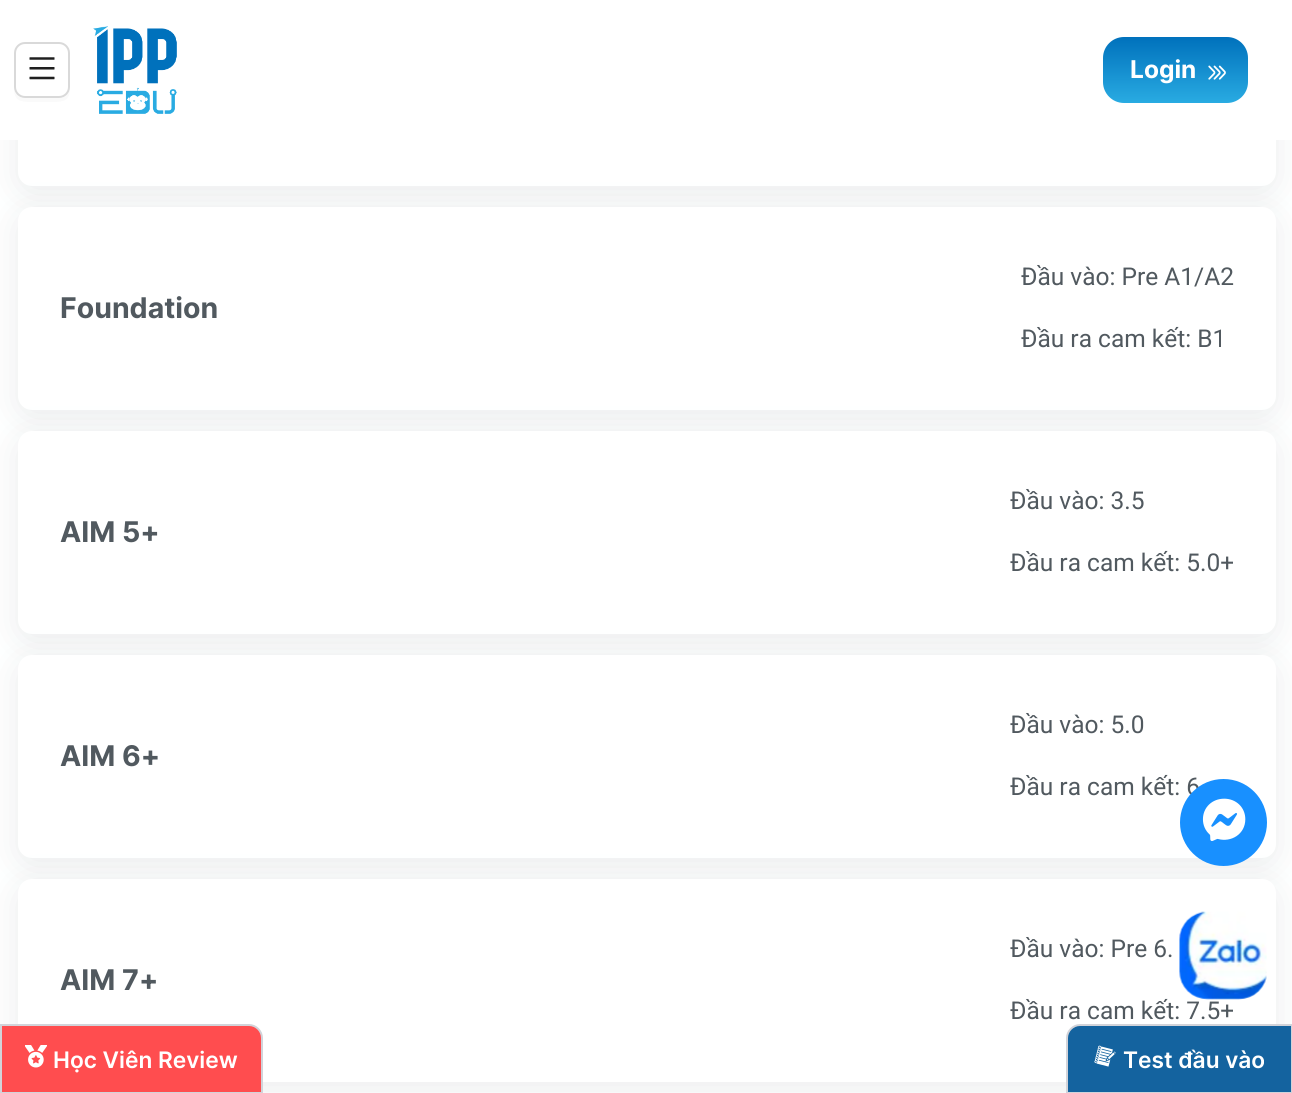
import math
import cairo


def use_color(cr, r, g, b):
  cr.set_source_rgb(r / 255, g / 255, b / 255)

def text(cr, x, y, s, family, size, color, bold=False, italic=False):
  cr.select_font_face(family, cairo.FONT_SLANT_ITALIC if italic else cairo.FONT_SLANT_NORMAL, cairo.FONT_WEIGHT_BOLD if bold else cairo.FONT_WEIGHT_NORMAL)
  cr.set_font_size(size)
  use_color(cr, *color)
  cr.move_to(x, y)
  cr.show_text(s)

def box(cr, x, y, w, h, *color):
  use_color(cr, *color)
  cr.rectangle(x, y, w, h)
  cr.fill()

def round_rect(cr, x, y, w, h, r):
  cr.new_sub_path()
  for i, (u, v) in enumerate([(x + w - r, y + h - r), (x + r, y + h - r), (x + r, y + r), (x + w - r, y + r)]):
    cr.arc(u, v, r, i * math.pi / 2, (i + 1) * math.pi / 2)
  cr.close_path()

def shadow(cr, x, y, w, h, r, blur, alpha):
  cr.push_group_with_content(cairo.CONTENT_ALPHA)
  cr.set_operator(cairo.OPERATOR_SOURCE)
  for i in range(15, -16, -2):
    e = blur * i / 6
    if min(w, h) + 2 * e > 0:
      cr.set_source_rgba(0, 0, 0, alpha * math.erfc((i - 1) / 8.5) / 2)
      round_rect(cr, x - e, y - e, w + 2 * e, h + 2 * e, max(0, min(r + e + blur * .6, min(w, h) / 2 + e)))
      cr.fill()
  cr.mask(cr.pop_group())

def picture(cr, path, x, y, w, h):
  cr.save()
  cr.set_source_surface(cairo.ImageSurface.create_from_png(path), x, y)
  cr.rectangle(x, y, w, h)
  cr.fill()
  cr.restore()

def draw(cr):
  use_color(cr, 255, 255, 255)
  cr.paint()
  use_color(cr, 123, 132, 138)
  shadow(cr, 18, -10, 1258, 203, 14, 17.5, 0.15)
  use_color(cr, 255, 255, 255)
  round_rect(cr, 18, -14, 1258, 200, 14)
  cr.fill()
  box(cr, 0, 0, 1292, 140, 255, 255, 255)
  use_color(cr, 250, 250, 250)
  cr.new_path()
  cr.move_to(14, 88)
  cr.curve_to(14, 100, 19, 102, 31, 102)
  cr.line_to(53, 102)
  cr.curve_to(65, 102, 70, 100, 70, 88)
  cr.curve_to(70, 93, 65, 98, 60, 98)
  cr.line_to(24, 98)
  cr.curve_to(19, 98, 14, 93, 14, 88)
  cr.close_path()
  cr.fill()
  round_rect(cr, 15, 43, 54, 54, 10)
  use_color(cr, 217, 217, 217)
  cr.stroke()
  picture(cr, "img_01.png", 29, 57, 26, 23)
  picture(cr, "img_02.png", 93, 26, 84, 88)
  gradient = cairo.LinearGradient(1175, 37, 1175, 103)
  gradient.add_color_stop_rgba(0, 0, 0.443, 0.737, 1)
  gradient.add_color_stop_rgba(1, 0.161, 0.671, 0.886, 1)
  cr.set_source(gradient)
  round_rect(cr, 1103, 37, 145, 66, 21)
  cr.fill()
  picture(cr, "img_03.png", 1208, 65, 18, 15)
  use_color(cr, 123, 132, 138)
  shadow(cr, 18, 214, 1258, 203, 14, 17.5, 0.15)
  use_color(cr, 255, 255, 255)
  round_rect(cr, 18, 207, 1258, 203, 14)
  cr.fill()
  use_color(cr, 123, 132, 138)
  shadow(cr, 18, 438, 1258, 203, 14, 17.5, 0.15)
  use_color(cr, 255, 255, 255)
  round_rect(cr, 18, 431, 1258, 203, 14)
  cr.fill()
  use_color(cr, 123, 132, 138)
  shadow(cr, 18, 662, 1258, 203, 14, 17.5, 0.15)
  use_color(cr, 255, 255, 255)
  round_rect(cr, 18, 655, 1258, 203, 14)
  cr.fill()
  use_color(cr, 123, 132, 138)
  shadow(cr, 18, 886, 1258, 203, 14, 17.5, 0.15)
  use_color(cr, 255, 255, 255)
  round_rect(cr, 18, 879, 1258, 203, 14)
  cr.fill()
  use_color(cr, 255, 77, 79)
  cr.new_path()
  cr.move_to(1, 1025)
  cr.line_to(249, 1025)
  cr.curve_to(256, 1025, 262, 1031, 262, 1038)
  cr.line_to(262, 1093)
  cr.line_to(1, 1093)
  cr.close_path()
  cr.fill_preserve()
  use_color(cr, 210, 211, 217)
  cr.stroke()
  picture(cr, "img_06.png", 25, 1045, 22, 23)
  use_color(cr, 20, 99, 159)
  cr.new_path()
  cr.move_to(1080, 1025)
  cr.line_to(1292, 1025)
  cr.line_to(1292, 1093)
  cr.line_to(1067, 1093)
  cr.line_to(1067, 1038)
  cr.curve_to(1067, 1031, 1073, 1025, 1080, 1025)
  cr.close_path()
  cr.fill_preserve()
  use_color(cr, 210, 211, 217)
  cr.stroke()
  picture(cr, "img_07.png", 1094, 1045, 22, 22)
  text(cr, 1130, 78, "Login", "Inter", 24.5, (255, 255, 255), bold=True)
  text(cr, 60, 318, "Foundation", "Inter", 28.5, (81, 89, 95), bold=True)
  text(cr, 1021, 285, "Đầu vào: Pre A1/A2", "Roboto", 24.5, (81, 89, 95))
  text(cr, 1021, 347, "Đầu ra cam kết: B1", "Roboto", 24.5, (81, 89, 95))
  text(cr, 60, 542, "AIM 5+", "Inter", 28.5, (81, 89, 95), bold=True)
  text(cr, 1010, 509, "Đầu vào: 3.5", "Roboto", 24.5, (81, 89, 95))
  text(cr, 1010, 571, "Đầu ra cam kết: 5.0+", "Roboto", 24.5, (81, 89, 95))
  text(cr, 60, 766, "AIM 6+", "Inter", 28.5, (81, 89, 95), bold=True)
  text(cr, 1010, 733, "Đầu vào: 5.0", "Roboto", 24.5, (81, 89, 95))
  text(cr, 1010, 795, "Đầu ra cam kết: 6", "Roboto", 24.5, (81, 89, 95))
  text(cr, 60, 990, "AIM 7+", "Inter", 28.5, (81, 89, 95), bold=True)
  text(cr, 1010, 957, "Đầu vào: Pre 6.", "Roboto", 24.5, (81, 89, 95))
  text(cr, 1010, 1019, "Đầu ra cam kết: 7.5+", "Roboto", 24.5, (81, 89, 95))
  use_color(cr, 24, 144, 255)
  cr.new_path()
  cr.arc(1223.5, 822.5, 43.5, 0, 2 * math.pi)
  cr.fill()
  picture(cr, "img_04.png", 1202, 798, 44, 43)
  picture(cr, "img_05.png", 1179, 911, 88, 89)
  text(cr, 53, 1068, "Học Viên Review", "Inter SemiBold", 22.75, (255, 255, 255))
  text(cr, 1123, 1068, "Test đầu vào", "Inter SemiBold", 22.75, (255, 255, 255))


surface = cairo.ImageSurface(cairo.FORMAT_RGB24, 1292, 1093)
cr = cairo.Context(surface)
options = cairo.FontOptions()
options.set_hint_metrics(cairo.HINT_METRICS_OFF)
options.set_hint_style(cairo.HINT_STYLE_NONE)
cr.set_font_options(options)
cr.set_miter_limit(4)
draw(cr)
surface.write_to_png("out.png")
